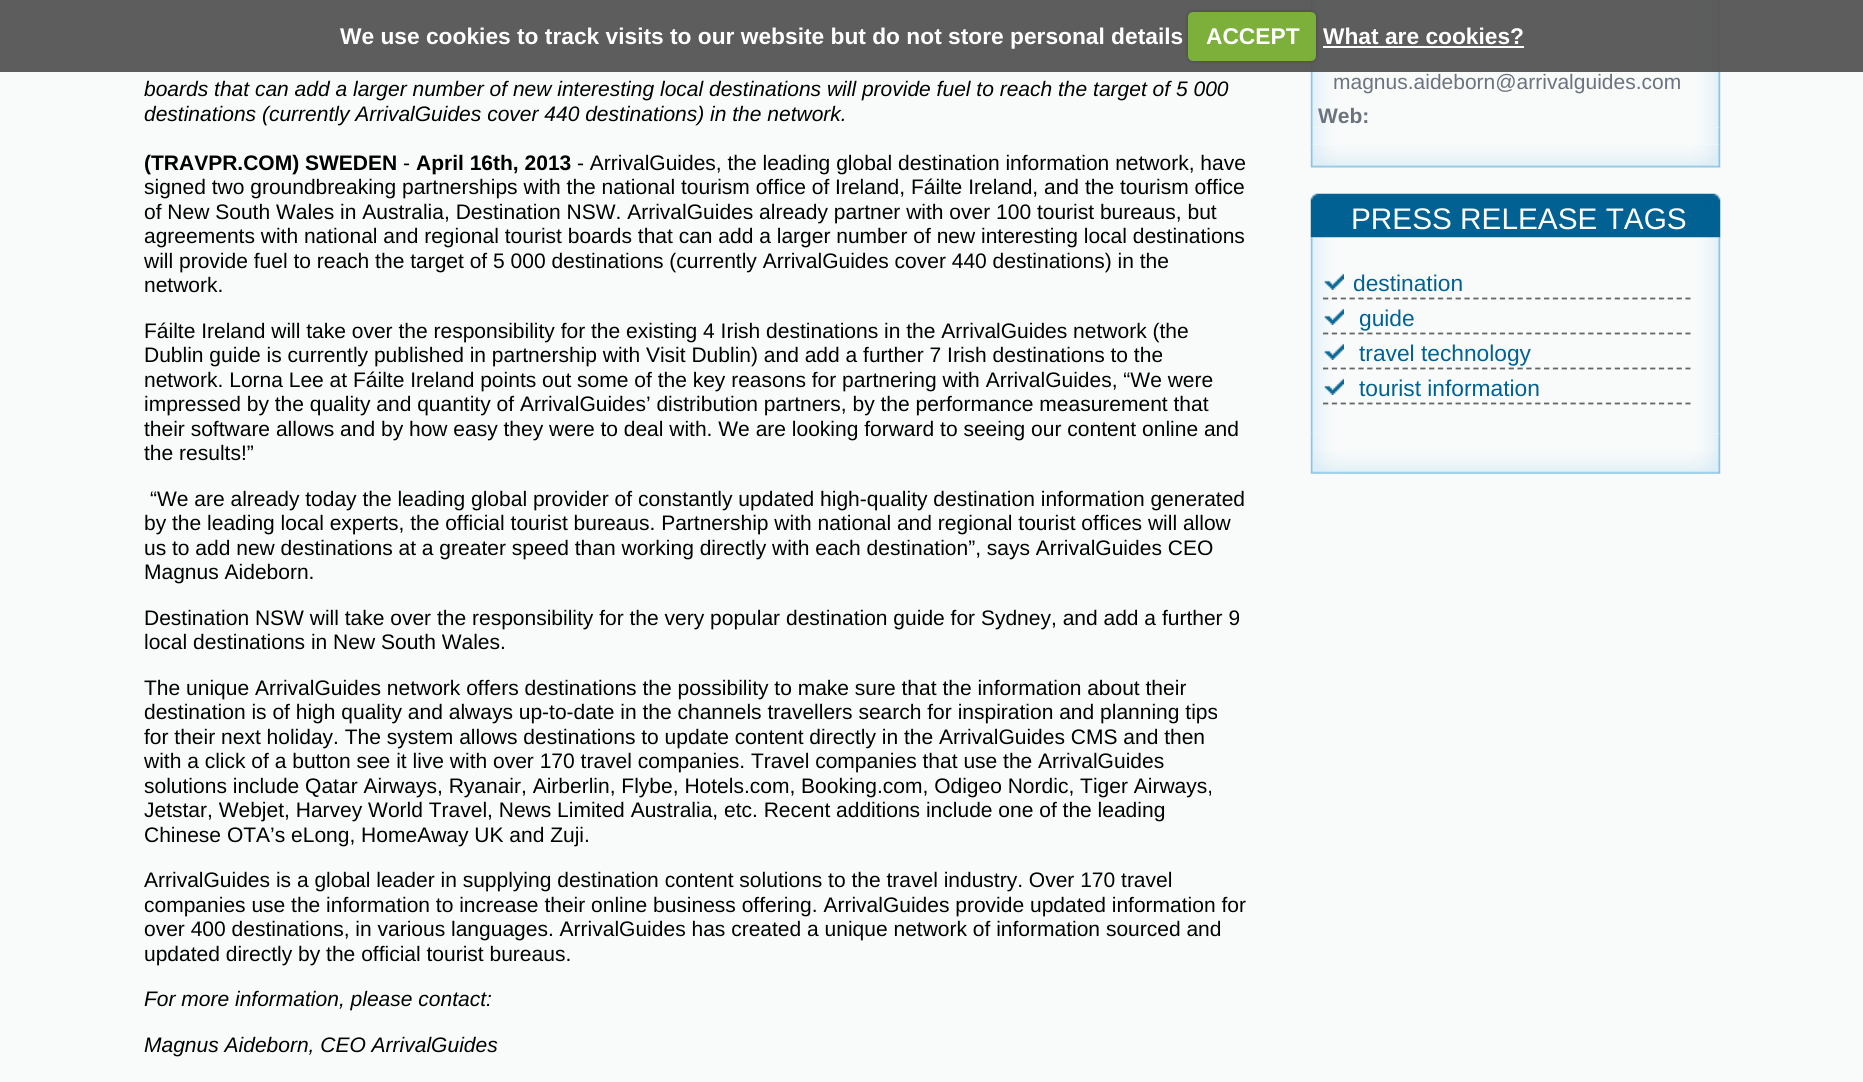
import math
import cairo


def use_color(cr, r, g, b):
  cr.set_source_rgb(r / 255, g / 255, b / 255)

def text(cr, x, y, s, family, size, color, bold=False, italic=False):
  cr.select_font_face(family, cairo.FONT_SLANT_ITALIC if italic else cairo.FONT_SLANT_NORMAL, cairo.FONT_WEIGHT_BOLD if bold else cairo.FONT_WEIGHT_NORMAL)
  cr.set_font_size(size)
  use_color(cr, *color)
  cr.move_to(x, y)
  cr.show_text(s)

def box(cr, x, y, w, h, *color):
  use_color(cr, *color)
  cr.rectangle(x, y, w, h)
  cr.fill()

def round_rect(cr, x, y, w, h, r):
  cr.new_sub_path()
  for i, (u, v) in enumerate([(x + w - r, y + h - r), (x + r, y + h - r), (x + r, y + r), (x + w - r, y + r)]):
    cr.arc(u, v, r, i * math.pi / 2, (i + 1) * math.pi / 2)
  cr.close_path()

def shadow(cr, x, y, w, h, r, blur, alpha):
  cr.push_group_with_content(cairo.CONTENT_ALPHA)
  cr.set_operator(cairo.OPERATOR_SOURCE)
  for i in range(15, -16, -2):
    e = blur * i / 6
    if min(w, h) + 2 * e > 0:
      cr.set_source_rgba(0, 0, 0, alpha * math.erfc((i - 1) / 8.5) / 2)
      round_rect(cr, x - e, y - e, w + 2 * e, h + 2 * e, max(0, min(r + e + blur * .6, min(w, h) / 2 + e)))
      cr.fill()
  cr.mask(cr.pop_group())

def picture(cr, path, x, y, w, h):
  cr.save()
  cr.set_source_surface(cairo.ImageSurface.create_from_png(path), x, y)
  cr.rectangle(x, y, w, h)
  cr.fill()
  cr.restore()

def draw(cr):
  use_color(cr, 249, 251, 251)
  cr.paint()
  picture(cr, "img_01.png", 1310, 0, 411, 128)
  cr.set_source_rgba(0.337, 0.337, 0.337, 0.95)
  cr.rectangle(0, 0, 1863, 72)
  cr.fill()
  use_color(cr, 0, 0, 0)
  shadow(cr, 1188, 12, 128, 49, 5, 2, 0.25)
  use_color(cr, 125, 175, 59)
  round_rect(cr, 1188, 12, 128, 49, 5)
  cr.fill()
  box(cr, 1323, 46, 201, 2, 255, 255, 255)
  picture(cr, "img_02.png", 1310, 127, 411, 18)
  picture(cr, "img_03.png", 1310, 144, 411, 24)
  picture(cr, "img_04.png", 1310, 193, 411, 45)
  picture(cr, "img_05.png", 1310, 237, 411, 197)
  cr.new_path()
  cr.move_to(1323, 298.5)
  cr.line_to(1690.5, 298.5)
  use_color(cr, 102, 102, 102)
  cr.set_line_width(1.8)
  cr.set_dash([5.25, 3.59])
  cr.stroke()
  picture(cr, "img_06.png", 1324, 273, 20, 17)
  cr.new_path()
  cr.move_to(1323, 333.5)
  cr.line_to(1690.5, 333.5)
  cr.stroke()
  picture(cr, "img_06.png", 1324, 308, 20, 17)
  cr.new_path()
  cr.move_to(1323, 368.5)
  cr.line_to(1690.5, 368.5)
  cr.stroke()
  picture(cr, "img_06.png", 1324, 343, 20, 17)
  cr.new_path()
  cr.move_to(1323, 403.5)
  cr.line_to(1690.5, 403.5)
  cr.stroke()
  picture(cr, "img_06.png", 1324, 378, 20, 17)
  picture(cr, "img_07.png", 1310, 433, 411, 18)
  picture(cr, "img_08.png", 1310, 451, 411, 23)
  text(cr, 340, 44, "We use cookies to track visits to our website but do not store personal details", "Liberation Sans", 22.75, (255, 255, 255), bold=True)
  text(cr, 1206, 44, "ACCEPT", "Liberation Sans", 22.75, (255, 255, 255), bold=True)
  text(cr, 1323, 44, "What are cookies?", "Liberation Sans", 22.75, (255, 255, 255), bold=True)
  text(cr, 144, 96, "boards that can add a larger number of new interesting local destinations will provide fuel to reach the target of 5 000", "Liberation Sans", 21, (0, 0, 0), italic=True)
  text(cr, 144, 121, "destinations (currently ArrivalGuides cover 440 destinations) in the network.", "Liberation Sans", 21, (0, 0, 0), italic=True)
  text(cr, 144, 170, "(TRAVPR.COM) SWEDEN", "Liberation Sans", 21, (0, 0, 0), bold=True)
  text(cr, 403, 170, "-", "Liberation Sans", 21, (0, 0, 0))
  text(cr, 416, 170, "April 16th, 2013", "Liberation Sans", 21, (0, 0, 0), bold=True)
  text(cr, 577, 170, "- ArrivalGuides, the leading global destination information network, have", "Liberation Sans", 21, (0, 0, 0))
  text(cr, 144, 194, "signed two groundbreaking partnerships with the national tourism office of Ireland, Fáilte Ireland, and the tourism office", "Liberation Sans", 21, (0, 0, 0))
  text(cr, 144, 219, "of New South Wales in Australia, Destination NSW. ArrivalGuides already partner with over 100 tourist bureaus, but", "Liberation Sans", 21, (0, 0, 0))
  text(cr, 144, 243, "agreements with national and regional tourist boards that can add a larger number of new interesting local destinations", "Liberation Sans", 21, (0, 0, 0))
  text(cr, 144, 268, "will provide fuel to reach the target of 5 000 destinations (currently ArrivalGuides cover 440 destinations) in the", "Liberation Sans", 21, (0, 0, 0))
  text(cr, 144, 292, "network.", "Liberation Sans", 21, (0, 0, 0))
  text(cr, 144, 338, "Fáilte Ireland will take over the responsibility for the existing 4 Irish destinations in the ArrivalGuides network (the", "Liberation Sans", 21, (0, 0, 0))
  text(cr, 144, 362, "Dublin guide is currently published in partnership with Visit Dublin) and add a further 7 Irish destinations to the", "Liberation Sans", 21, (0, 0, 0))
  text(cr, 144, 387, "network. Lorna Lee at Fáilte Ireland points out some of the key reasons for partnering with ArrivalGuides, “We were", "Liberation Sans", 21, (0, 0, 0))
  text(cr, 144, 411, "impressed by the quality and quantity of ArrivalGuides’ distribution partners, by the performance measurement that", "Liberation Sans", 21, (0, 0, 0))
  text(cr, 144, 436, "their software allows and by how easy they were to deal with. We are looking forward to seeing our content online and", "Liberation Sans", 21, (0, 0, 0))
  text(cr, 144, 460, "the results!”", "Liberation Sans", 21, (0, 0, 0))
  text(cr, 150, 506, "“We are already today the leading global provider of constantly updated high-quality destination information generated", "Liberation Sans", 21, (0, 0, 0))
  text(cr, 144, 530, "by the leading local experts, the official tourist bureaus. Partnership with national and regional tourist offices will allow", "Liberation Sans", 21, (0, 0, 0))
  text(cr, 144, 555, "us to add new destinations at a greater speed than working directly with each destination”, says ArrivalGuides CEO", "Liberation Sans", 21, (0, 0, 0))
  text(cr, 144, 579, "Magnus Aideborn.", "Liberation Sans", 21, (0, 0, 0))
  text(cr, 144, 625, "Destination NSW will take over the responsibility for the very popular destination guide for Sydney, and add a further 9", "Liberation Sans", 21, (0, 0, 0))
  text(cr, 144, 649, "local destinations in New South Wales.", "Liberation Sans", 21, (0, 0, 0))
  text(cr, 144, 695, "The unique ArrivalGuides network offers destinations the possibility to make sure that the information about their", "Liberation Sans", 21, (0, 0, 0))
  text(cr, 144, 719, "destination is of high quality and always up-to-date in the channels travellers search for inspiration and planning tips", "Liberation Sans", 21, (0, 0, 0))
  text(cr, 144, 744, "for their next holiday. The system allows destinations to update content directly in the ArrivalGuides CMS and then", "Liberation Sans", 21, (0, 0, 0))
  text(cr, 144, 768, "with a click of a button see it live with over 170 travel companies. Travel companies that use the ArrivalGuides", "Liberation Sans", 21, (0, 0, 0))
  text(cr, 144, 793, "solutions include Qatar Airways, Ryanair, Airberlin, Flybe, Hotels.com, Booking.com, Odigeo Nordic, Tiger Airways,", "Liberation Sans", 21, (0, 0, 0))
  text(cr, 144, 817, "Jetstar, Webjet, Harvey World Travel, News Limited Australia, etc. Recent additions include one of the leading", "Liberation Sans", 21, (0, 0, 0))
  text(cr, 144, 842, "Chinese OTA’s eLong, HomeAway UK and Zuji.", "Liberation Sans", 21, (0, 0, 0))
  text(cr, 144, 887, "ArrivalGuides is a global leader in supplying destination content solutions to the travel industry. Over 170 travel", "Liberation Sans", 21, (0, 0, 0))
  text(cr, 144, 912, "companies use the information to increase their online business offering. ArrivalGuides provide updated information for", "Liberation Sans", 21, (0, 0, 0))
  text(cr, 144, 936, "over 400 destinations, in various languages. ArrivalGuides has created a unique network of information sourced and", "Liberation Sans", 21, (0, 0, 0))
  text(cr, 144, 961, "updated directly by the official tourist bureaus.", "Liberation Sans", 21, (0, 0, 0))
  text(cr, 144, 1006, "For more information, please contact:", "Liberation Sans", 21, (0, 0, 0), italic=True)
  text(cr, 144, 1052, "Magnus Aideborn, CEO ArrivalGuides", "Liberation Sans", 21, (0, 0, 0), italic=True)
  text(cr, 1333, 89, "magnus.aideborn@arrivalguides.com", "Liberation Sans", 21, (108, 115, 127))
  text(cr, 1318, 123, "Web:", "Liberation Sans", 21, (108, 115, 127), bold=True)
  text(cr, 1351, 229, "PRESS RELEASE TAGS", "Liberation Sans", 29.75, (255, 255, 255))
  text(cr, 1353, 291, "destination", "Liberation Sans", 22.75, (0, 97, 146))
  text(cr, 1359, 326, "guide", "Liberation Sans", 22.75, (0, 97, 146))
  text(cr, 1359, 361, "travel technology", "Liberation Sans", 22.75, (0, 97, 146))
  text(cr, 1359, 396, "tourist information", "Liberation Sans", 22.75, (0, 97, 146))


surface = cairo.ImageSurface(cairo.FORMAT_RGB24, 1863, 1082)
cr = cairo.Context(surface)
options = cairo.FontOptions()
options.set_hint_metrics(cairo.HINT_METRICS_OFF)
options.set_hint_style(cairo.HINT_STYLE_NONE)
cr.set_font_options(options)
cr.set_miter_limit(4)
draw(cr)
surface.write_to_png("out.png")
